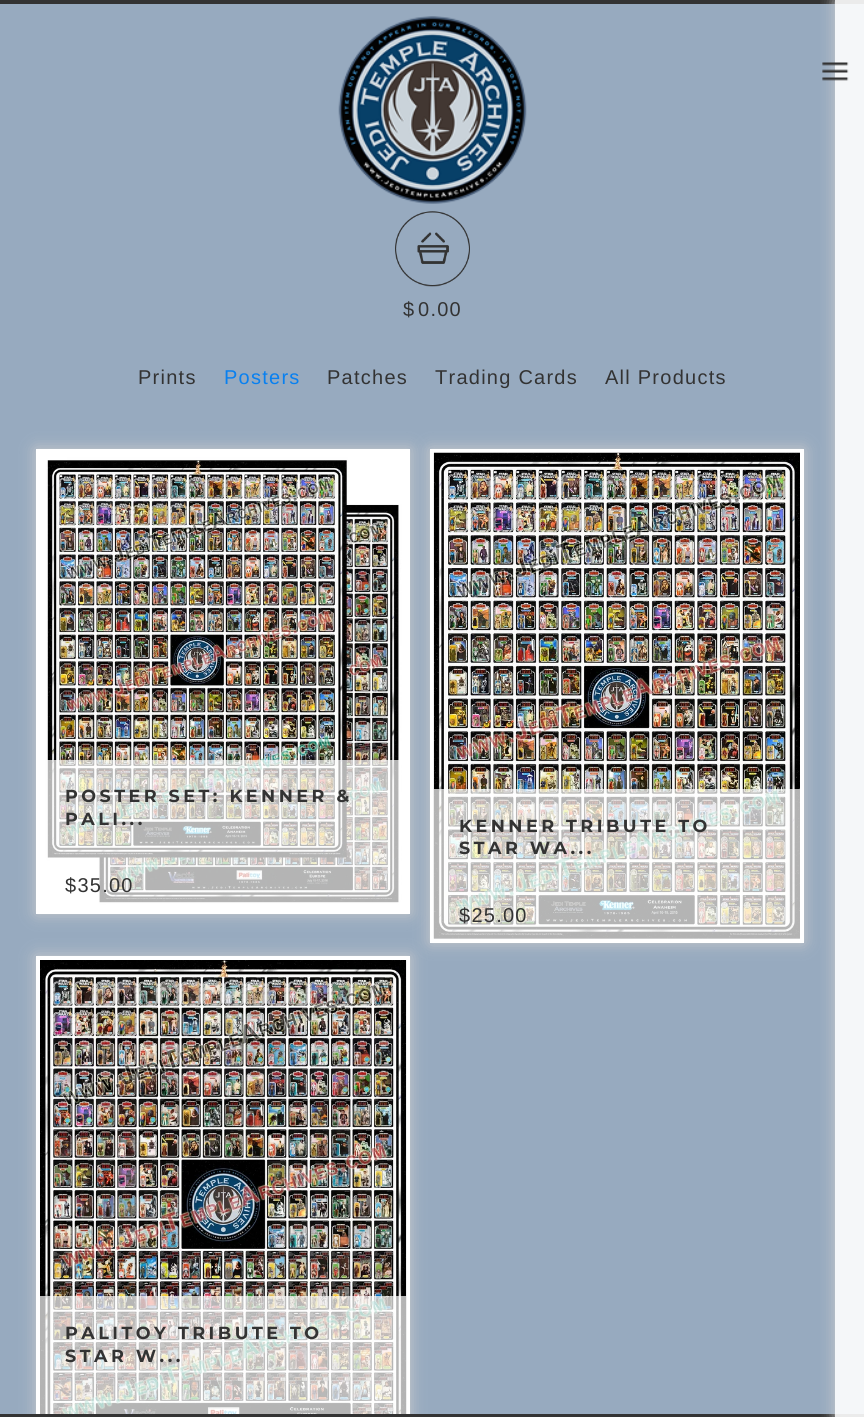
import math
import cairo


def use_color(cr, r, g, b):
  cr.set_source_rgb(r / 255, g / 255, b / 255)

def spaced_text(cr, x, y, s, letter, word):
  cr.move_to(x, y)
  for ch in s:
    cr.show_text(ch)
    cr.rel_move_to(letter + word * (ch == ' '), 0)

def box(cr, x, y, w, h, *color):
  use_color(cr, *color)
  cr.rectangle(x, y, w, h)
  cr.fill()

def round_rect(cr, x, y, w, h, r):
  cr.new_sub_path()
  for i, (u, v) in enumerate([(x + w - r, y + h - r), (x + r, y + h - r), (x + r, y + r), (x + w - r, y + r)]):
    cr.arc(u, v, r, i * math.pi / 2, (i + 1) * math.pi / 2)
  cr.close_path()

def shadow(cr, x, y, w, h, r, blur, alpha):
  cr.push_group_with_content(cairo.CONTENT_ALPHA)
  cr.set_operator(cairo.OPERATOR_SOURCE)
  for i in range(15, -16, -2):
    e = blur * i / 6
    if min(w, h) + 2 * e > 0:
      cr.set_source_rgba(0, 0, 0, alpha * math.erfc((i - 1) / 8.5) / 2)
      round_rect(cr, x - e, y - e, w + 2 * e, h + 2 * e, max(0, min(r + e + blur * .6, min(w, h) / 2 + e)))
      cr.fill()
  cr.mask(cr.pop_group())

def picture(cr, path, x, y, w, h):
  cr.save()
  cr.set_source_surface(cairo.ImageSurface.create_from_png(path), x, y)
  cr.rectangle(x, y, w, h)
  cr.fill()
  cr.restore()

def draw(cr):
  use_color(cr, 151, 170, 191)
  cr.paint()
  box(cr, 0, 0, 835, 4, 51, 51, 51)
  box(cr, 835, 0, 29, 4, 235, 235, 235)
  picture(cr, "img_01.png", 338, 16, 189, 188)
  picture(cr, "img_02.png", 395, 211, 75, 76)
  box(cr, 835, 4, 29, 1410, 245, 247, 249)
  use_color(cr, 204, 204, 204)
  shadow(cr, 36, 449, 374, 465, 0, 7.5, 1)
  cr.rectangle(38, 451, 370, 461)
  use_color(cr, 255, 255, 255)
  cr.set_line_width(4)
  cr.stroke()
  use_color(cr, 204, 204, 204)
  shadow(cr, 430, 449, 374, 494, 0, 7.5, 1)
  cr.rectangle(432, 451, 370, 490)
  use_color(cr, 255, 255, 255)
  cr.stroke()
  picture(cr, "img_05.png", 433, 452, 367, 487)
  use_color(cr, 204, 204, 204)
  shadow(cr, 36, 956, 374, 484, 0, 7.5, 1)
  cr.rectangle(38, 958, 370, 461)
  use_color(cr, 255, 255, 255)
  cr.stroke()
  box(cr, 0, 1414, 835, 3, 51, 51, 51)
  box(cr, 835, 1414, 29, 3, 235, 235, 235)
  cr.save()
  cr.rectangle(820, 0, 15, 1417)
  cr.clip()
  use_color(cr, 204, 204, 204)
  shadow(cr, 835, 0, 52, 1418, 0, 7.5, 1)
  cr.restore()
  picture(cr, "img_03.png", 822, 62, 27, 19)
  picture(cr, "img_04.png", 40, 453, 366, 457)
  cr.set_source_rgba(1, 1, 1, 0.7)
  cr.rectangle(46, 760, 355, 144)
  cr.fill()
  cr.rectangle(434, 789, 366, 150)
  cr.fill()
  picture(cr, "img_06.png", 40, 960, 367, 454)
  cr.rectangle(40, 1296, 366, 118)
  cr.fill()
  cr.select_font_face("Liberation Sans")
  cr.set_font_size(20)
  use_color(cr, 51, 51, 51)
  spaced_text(cr, 403, 316, "$", 1.25, 0)
  spaced_text(cr, 418, 316, "0.00", 1.25, 0)
  spaced_text(cr, 138, 384, "Prints", 1.25, 0)
  use_color(cr, 8, 128, 240)
  spaced_text(cr, 224, 384, "Posters", 1.25, 0)
  use_color(cr, 51, 51, 51)
  spaced_text(cr, 327, 384, "Patches", 1.25, 0)
  spaced_text(cr, 435, 384, "Trading Cards", 1.25, 0)
  spaced_text(cr, 605, 384, "All Products", 1.25, 0)
  cr.select_font_face("Montserrat", cairo.FONT_SLANT_NORMAL, cairo.FONT_WEIGHT_BOLD)
  cr.set_font_size(17.5)
  spaced_text(cr, 65, 802, "POSTER SET: KENNER &", 3.5, 0)
  spaced_text(cr, 65, 825, "PALI...", 3.5, 0)
  cr.select_font_face("Liberation Sans")
  cr.set_font_size(20)
  spaced_text(cr, 65, 892, "$35.00", 1.25, 0)
  cr.select_font_face("Montserrat", cairo.FONT_SLANT_NORMAL, cairo.FONT_WEIGHT_BOLD)
  cr.set_font_size(17.5)
  spaced_text(cr, 459, 832, "KENNER TRIBUTE TO", 3.5, 0)
  spaced_text(cr, 459, 854, "STAR WA...", 3.5, 0)
  cr.select_font_face("Liberation Sans")
  cr.set_font_size(20)
  spaced_text(cr, 459, 922, "$25.00", 1.25, 0)
  cr.select_font_face("Montserrat", cairo.FONT_SLANT_NORMAL, cairo.FONT_WEIGHT_BOLD)
  cr.set_font_size(17.5)
  spaced_text(cr, 65, 1339, "PALITOY TRIBUTE TO", 3.5, 0)
  spaced_text(cr, 65, 1362, "STAR W...", 3.5, 0)


surface = cairo.ImageSurface(cairo.FORMAT_RGB24, 864, 1417)
cr = cairo.Context(surface)
options = cairo.FontOptions()
options.set_hint_metrics(cairo.HINT_METRICS_OFF)
options.set_hint_style(cairo.HINT_STYLE_NONE)
cr.set_font_options(options)
cr.set_miter_limit(4)
draw(cr)
surface.write_to_png("out.png")
